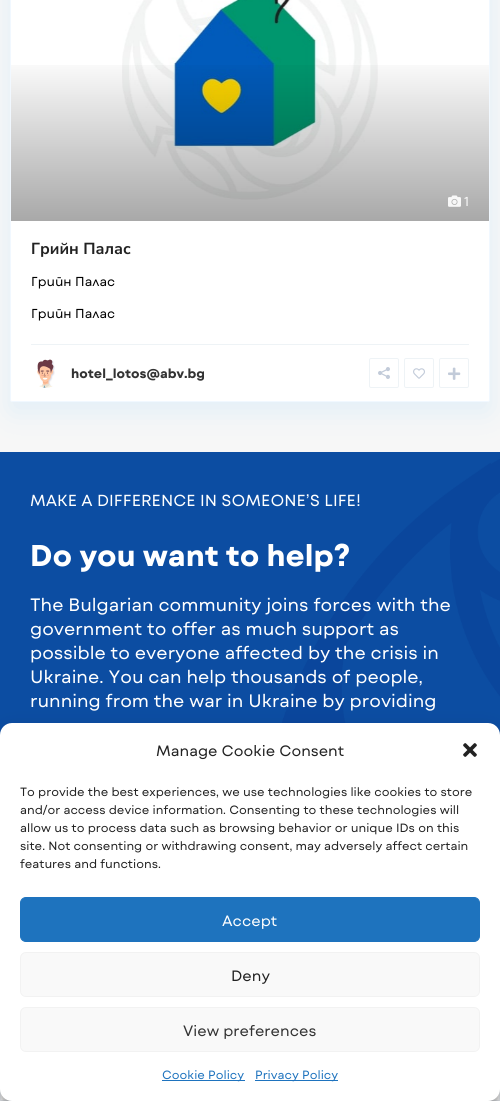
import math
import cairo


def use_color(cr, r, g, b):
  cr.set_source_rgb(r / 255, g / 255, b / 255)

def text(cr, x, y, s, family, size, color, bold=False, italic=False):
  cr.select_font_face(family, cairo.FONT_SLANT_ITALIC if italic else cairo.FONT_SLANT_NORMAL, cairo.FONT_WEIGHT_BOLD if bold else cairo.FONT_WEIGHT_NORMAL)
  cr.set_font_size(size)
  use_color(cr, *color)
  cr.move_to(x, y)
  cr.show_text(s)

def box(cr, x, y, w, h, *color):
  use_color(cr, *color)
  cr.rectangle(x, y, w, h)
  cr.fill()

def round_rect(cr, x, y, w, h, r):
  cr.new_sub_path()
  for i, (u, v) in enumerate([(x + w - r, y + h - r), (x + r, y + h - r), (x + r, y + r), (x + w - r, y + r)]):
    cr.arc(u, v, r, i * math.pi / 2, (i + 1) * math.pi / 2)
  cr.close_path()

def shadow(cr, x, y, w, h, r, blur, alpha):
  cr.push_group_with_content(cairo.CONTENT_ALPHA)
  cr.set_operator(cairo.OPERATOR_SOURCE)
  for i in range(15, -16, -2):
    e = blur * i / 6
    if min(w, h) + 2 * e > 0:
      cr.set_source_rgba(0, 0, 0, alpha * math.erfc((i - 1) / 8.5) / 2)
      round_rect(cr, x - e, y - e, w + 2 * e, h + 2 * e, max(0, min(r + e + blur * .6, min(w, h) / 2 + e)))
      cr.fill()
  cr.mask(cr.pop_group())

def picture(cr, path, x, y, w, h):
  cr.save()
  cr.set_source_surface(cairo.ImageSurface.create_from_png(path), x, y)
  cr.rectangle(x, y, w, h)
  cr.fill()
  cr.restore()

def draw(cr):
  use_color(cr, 247, 247, 247)
  cr.paint()
  picture(cr, "img_07.png", 0, 452, 500, 283)
  use_color(cr, 7, 152, 255)
  shadow(cr, 10, -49, 480, 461, 2, 15.5, 0.09)
  use_color(cr, 255, 255, 255)
  round_rect(cr, 10.5, -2.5, 479, 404, 1.5)
  cr.fill_preserve()
  use_color(cr, 241, 248, 255)
  cr.set_line_width(1)
  cr.stroke()
  picture(cr, "img_01.png", 122, 0, 256, 200)
  gradient = cairo.LinearGradient(250, 221, 250, -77)
  gradient.add_color_stop_rgba(0, 0, 0, 0, 0.34)
  gradient.add_color_stop_rgba(0.56, 0, 0, 0, 0)
  cr.set_source(gradient)
  cr.rectangle(11, 65, 478, 156)
  cr.fill()
  picture(cr, "img_02.png", 448, 195, 13, 12)
  box(cr, 31, 344, 438, 1, 238, 243, 246)
  picture(cr, "img_03.png", 37, 359, 18, 29)
  picture(cr, "img_04.png", 378, 367, 12, 12)
  round_rect(cr, 369.5, 358.5, 29, 29, 1.5)
  cr.stroke()
  round_rect(cr, 404.5, 358.5, 29, 29, 1.5)
  cr.stroke()
  picture(cr, "img_05.png", 413, 368, 12, 11)
  round_rect(cr, 439.5, 358.5, 29, 29, 1.5)
  cr.stroke()
  picture(cr, "img_06.png", 448, 367, 13, 13)
  box(cr, 1, 1093, 498, 7, 255, 255, 255)
  cr.rectangle(0.5, 1039.5, 499, 61)
  use_color(cr, 240, 243, 247)
  cr.stroke()
  use_color(cr, 0, 0, 0)
  shadow(cr, 0, 729, 500, 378, 12, 3, 0.23)
  shadow(cr, 0, 733, 500, 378, 12, 10, 0.19)
  use_color(cr, 255, 255, 255)
  round_rect(cr, 0, 723, 500, 378, 12)
  cr.fill()
  picture(cr, "img_08.png", 463, 743, 14, 14)
  use_color(cr, 30, 115, 190)
  round_rect(cr, 20.5, 897.5, 459, 44, 5.5)
  cr.fill_preserve()
  cr.stroke()
  use_color(cr, 249, 249, 249)
  round_rect(cr, 20.5, 952.5, 459, 44, 5.5)
  cr.fill_preserve()
  use_color(cr, 242, 242, 242)
  cr.stroke()
  use_color(cr, 249, 249, 249)
  round_rect(cr, 20.5, 1007.5, 459, 44, 5.5)
  cr.fill_preserve()
  use_color(cr, 242, 242, 242)
  cr.stroke()
  box(cr, 162, 1080, 83, 1, 30, 115, 190)
  box(cr, 255, 1080, 83, 1, 30, 115, 190)
  text(cr, 464, 206, "1", "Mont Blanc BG", 13, (247, 247, 247))
  text(cr, 31, 254, "Грийн Палас", "Nunito Sans", 16, (34, 34, 34), bold=True)
  text(cr, 31, 286, "Грийн Палас", "Mont Blanc BG", 13, (0, 0, 0))
  text(cr, 31, 318, "Грийн Палас", "Mont Blanc BG", 13, (0, 0, 0))
  text(cr, 71, 378, "hotel_lotos@abv.bg", "Mont Blanc BG", 13, (51, 51, 51), bold=True)
  text(cr, 30, 506, "MAKE A DIFFERENCE IN SOMEONE’S LIFE!", "Mont Blanc BG", 16, (255, 255, 255))
  text(cr, 30, 566, "Do you want to help?", "Mont Blanc BG", 30, (255, 255, 255), bold=True)
  text(cr, 30, 611, "The Bulgarian community joins forces with the", "Mont Blanc BG", 18, (255, 255, 255))
  text(cr, 30, 635, "government to offer as much support as", "Mont Blanc BG", 18, (255, 255, 255))
  text(cr, 30, 659, "possible to everyone affected by the crisis in", "Mont Blanc BG", 18, (255, 255, 255))
  text(cr, 30, 683, "Ukraine. You can help thousands of people,", "Mont Blanc BG", 18, (255, 255, 255))
  text(cr, 30, 707, "running from the war in Ukraine by providing", "Mont Blanc BG", 18, (255, 255, 255))
  text(cr, 156, 756, "Manage Cookie Consent", "Mont Blanc BG", 15, (34, 34, 34))
  text(cr, 20, 796, "To provide the best experiences, we use technologies like cookies to store", "Mont Blanc BG", 12, (34, 34, 34))
  text(cr, 20, 814, "and/or access device information. Consenting to these technologies will", "Mont Blanc BG", 12, (34, 34, 34))
  text(cr, 20, 832, "allow us to process data such as browsing behavior or unique IDs on this", "Mont Blanc BG", 12, (34, 34, 34))
  text(cr, 20, 850, "site. Not consenting or withdrawing consent, may adversely affect certain", "Mont Blanc BG", 12, (34, 34, 34))
  text(cr, 20, 868, "features and functions.", "Mont Blanc BG", 12, (34, 34, 34))
  text(cr, 222, 926, "Accept", "Mont Blanc BG", 15, (255, 255, 255))
  text(cr, 231, 981, "Deny", "Mont Blanc BG", 15, (34, 34, 34))
  text(cr, 183, 1036, "View preferences", "Mont Blanc BG", 15, (51, 51, 51))
  text(cr, 162, 1079, "Cookie Policy", "Mont Blanc BG", 12, (30, 115, 190))
  text(cr, 255, 1079, "Privacy Policy", "Mont Blanc BG", 12, (30, 115, 190))


surface = cairo.ImageSurface(cairo.FORMAT_RGB24, 500, 1101)
cr = cairo.Context(surface)
options = cairo.FontOptions()
options.set_hint_metrics(cairo.HINT_METRICS_OFF)
options.set_hint_style(cairo.HINT_STYLE_NONE)
cr.set_font_options(options)
cr.set_miter_limit(4)
draw(cr)
surface.write_to_png("out.png")
